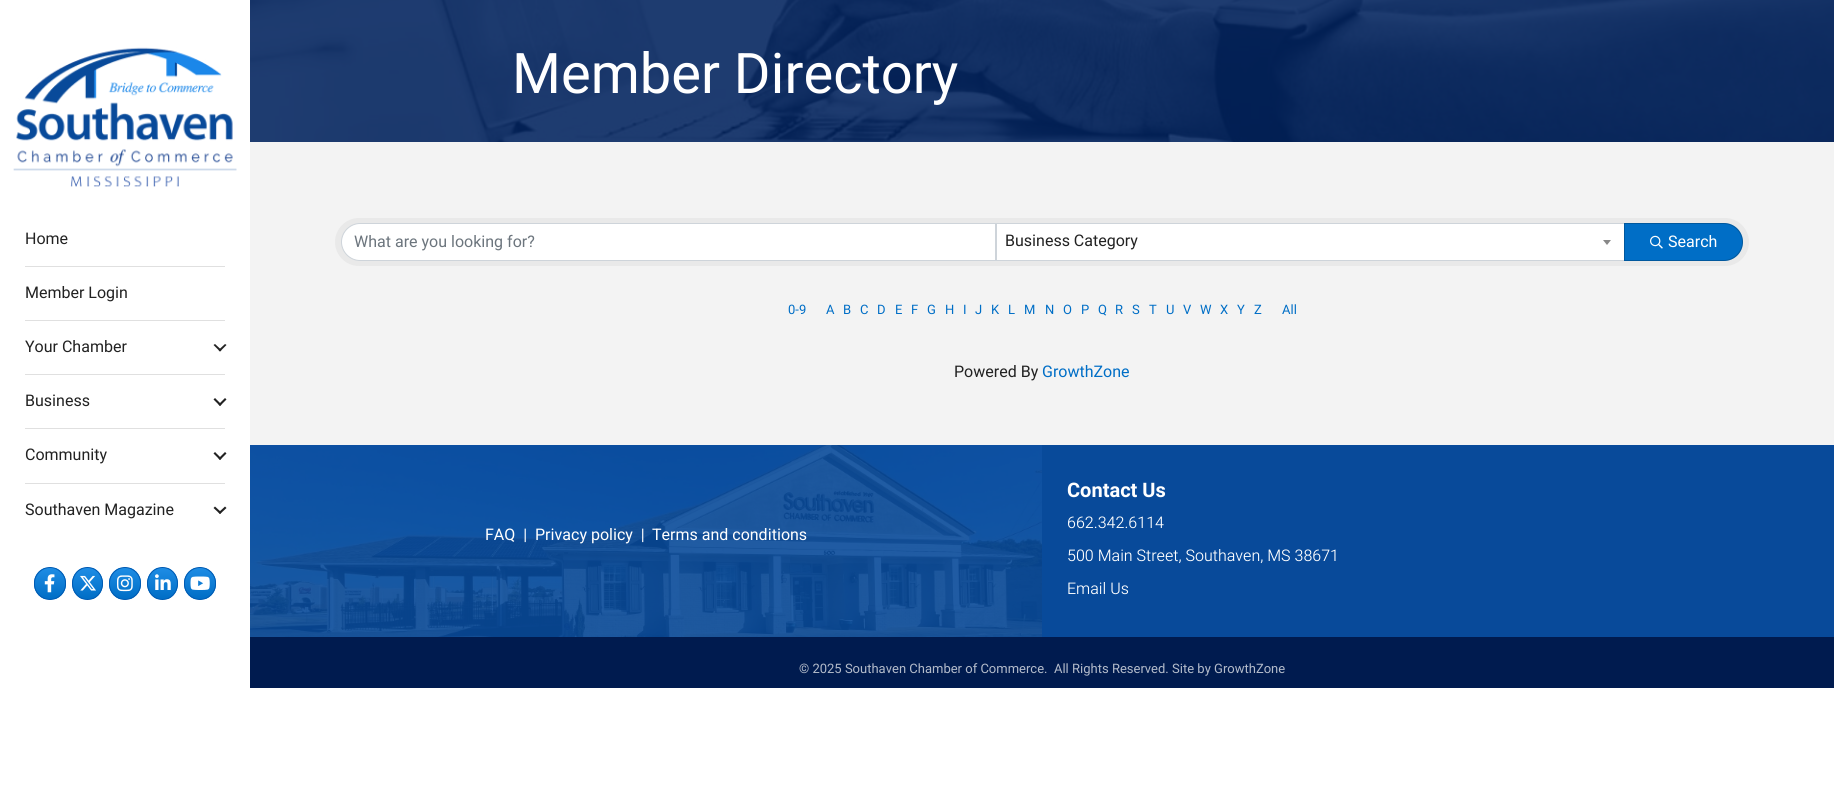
import math
import cairo


def use_color(cr, r, g, b):
  cr.set_source_rgb(r / 255, g / 255, b / 255)

def text(cr, x, y, s, family, size, color, bold=False, italic=False):
  cr.select_font_face(family, cairo.FONT_SLANT_ITALIC if italic else cairo.FONT_SLANT_NORMAL, cairo.FONT_WEIGHT_BOLD if bold else cairo.FONT_WEIGHT_NORMAL)
  cr.set_font_size(size)
  use_color(cr, *color)
  cr.move_to(x, y)
  cr.show_text(s)

def box(cr, x, y, w, h, *color):
  use_color(cr, *color)
  cr.rectangle(x, y, w, h)
  cr.fill()

def round_rect(cr, x, y, w, h, r):
  cr.new_sub_path()
  for i, (u, v) in enumerate([(x + w - r, y + h - r), (x + r, y + h - r), (x + r, y + r), (x + w - r, y + r)]):
    cr.arc(u, v, r, i * math.pi / 2, (i + 1) * math.pi / 2)
  cr.close_path()

def picture(cr, path, x, y, w, h):
  cr.save()
  cr.set_source_surface(cairo.ImageSurface.create_from_png(path), x, y)
  cr.rectangle(x, y, w, h)
  cr.fill()
  cr.restore()

def draw(cr):
  use_color(cr, 255, 255, 255)
  cr.paint()
  picture(cr, "img_01.png", 13, 47, 224, 140)
  box(cr, 25, 266, 200, 1, 224, 224, 224)
  box(cr, 25, 320, 200, 1, 224, 224, 224)
  use_color(cr, 34, 34, 34)
  cr.new_path()
  cr.move_to(225, 344)
  cr.line_to(226.5, 345)
  cr.line_to(220, 351.5)
  cr.line_to(218.5, 350)
  cr.close_path()
  cr.fill()
  box(cr, 25, 374, 200, 1, 224, 224, 224)
  use_color(cr, 34, 34, 34)
  cr.new_path()
  cr.move_to(215, 344)
  cr.line_to(221.5, 350)
  cr.line_to(220, 351.5)
  cr.line_to(213.5, 345)
  cr.close_path()
  cr.move_to(225, 398)
  cr.line_to(226.5, 399.5)
  cr.line_to(220, 406)
  cr.line_to(218.5, 404.5)
  cr.close_path()
  cr.fill()
  box(cr, 25, 428, 200, 1, 224, 224, 224)
  use_color(cr, 34, 34, 34)
  cr.new_path()
  cr.move_to(215, 398)
  cr.line_to(221.5, 404.5)
  cr.line_to(220, 406)
  cr.line_to(213.5, 399.5)
  cr.close_path()
  cr.move_to(225, 452)
  cr.line_to(226.5, 453.5)
  cr.line_to(220, 460)
  cr.line_to(218.5, 458.5)
  cr.close_path()
  cr.fill()
  box(cr, 25, 483, 200, 1, 224, 224, 224)
  use_color(cr, 34, 34, 34)
  cr.new_path()
  cr.move_to(215, 452)
  cr.line_to(221.5, 458.5)
  cr.line_to(220, 460)
  cr.line_to(213.5, 453.5)
  cr.close_path()
  cr.move_to(225, 506.5)
  cr.line_to(226.5, 508)
  cr.line_to(220, 514)
  cr.line_to(218.5, 512.5)
  cr.close_path()
  cr.fill()
  cr.new_path()
  cr.move_to(215, 506.5)
  cr.line_to(221.5, 512.5)
  cr.line_to(220, 514)
  cr.line_to(213.5, 508)
  cr.close_path()
  cr.fill()
  cr.save()
  round_rect(cr, 34, 567, 32, 33, 16)
  cr.clip()
  gradient = cairo.LinearGradient(50, 568, 50, 599)
  gradient.add_color_stop_rgba(0, 0.118, 0.549, 0.894, 1)
  gradient.add_color_stop_rgba(1, 0, 0.431, 0.776, 1)
  cr.set_source(gradient)
  cr.rectangle(34, 568, 32, 31)
  cr.fill()
  cr.restore()
  round_rect(cr, 34.5, 567.5, 31, 32, 15.5)
  use_color(cr, 0, 90, 178)
  cr.set_line_width(1)
  cr.stroke()
  picture(cr, "img_02.png", 44, 574, 11, 19)
  gradient = cairo.LinearGradient(88, 568, 88, 599)
  gradient.add_color_stop_rgba(0, 0.118, 0.549, 0.894, 1)
  gradient.add_color_stop_rgba(1, 0, 0.431, 0.776, 1)
  cr.set_source(gradient)
  cr.new_path()
  cr.move_to(82, 599)
  cr.curve_to(76, 596.5, 72, 590.5, 72, 583.5)
  cr.curve_to(72, 576.5, 76, 570.5, 82, 568)
  cr.line_to(93, 568)
  cr.curve_to(99, 570.5, 103, 576.5, 103, 583.5)
  cr.curve_to(103, 590.5, 99, 596.5, 93, 599)
  cr.close_path()
  cr.fill()
  cr.new_path()
  cr.move_to(87.5, 567.5)
  cr.curve_to(96, 567.5, 102.5, 574.5, 102.5, 583.5)
  cr.curve_to(102.5, 592.5, 96, 599.5, 87.5, 599.5)
  cr.curve_to(79, 599.5, 72.5, 592.5, 72.5, 583.5)
  cr.curve_to(72.5, 574.5, 79, 567.5, 87.5, 567.5)
  cr.close_path()
  use_color(cr, 0, 90, 178)
  cr.stroke()
  picture(cr, "img_03.png", 80, 575, 16, 16)
  cr.save()
  round_rect(cr, 109, 567, 32, 33, 16)
  cr.clip()
  gradient = cairo.LinearGradient(125, 568, 125, 599)
  gradient.add_color_stop_rgba(0, 0.118, 0.549, 0.894, 1)
  gradient.add_color_stop_rgba(1, 0, 0.431, 0.776, 1)
  cr.set_source(gradient)
  cr.rectangle(109, 568, 32, 31)
  cr.fill()
  cr.restore()
  round_rect(cr, 109.5, 567.5, 31, 32, 15.5)
  cr.stroke()
  picture(cr, "img_04.png", 117, 575, 16, 17)
  gradient = cairo.LinearGradient(163, 568, 163, 599)
  gradient.add_color_stop_rgba(0, 0.118, 0.549, 0.894, 1)
  gradient.add_color_stop_rgba(1, 0, 0.431, 0.776, 1)
  cr.set_source(gradient)
  cr.new_path()
  cr.move_to(157, 599)
  cr.curve_to(151, 596.5, 147, 590.5, 147, 583.5)
  cr.curve_to(147, 576.5, 151, 570.5, 157, 568)
  cr.line_to(168, 568)
  cr.curve_to(174, 570.5, 178, 576.5, 178, 583.5)
  cr.curve_to(178, 590.5, 174, 596.5, 168, 599)
  cr.close_path()
  cr.fill()
  cr.new_path()
  cr.move_to(162.5, 567.5)
  cr.curve_to(171, 567.5, 177.5, 574.5, 177.5, 583.5)
  cr.curve_to(177.5, 592.5, 171, 599.5, 162.5, 599.5)
  cr.curve_to(154, 599.5, 147.5, 592.5, 147.5, 583.5)
  cr.curve_to(147.5, 574.5, 154, 567.5, 162.5, 567.5)
  cr.close_path()
  use_color(cr, 0, 90, 178)
  cr.stroke()
  picture(cr, "img_05.png", 155, 574, 16, 16)
  cr.save()
  round_rect(cr, 184, 567, 32, 33, 16)
  cr.clip()
  gradient = cairo.LinearGradient(200, 568, 200, 599)
  gradient.add_color_stop_rgba(0, 0.118, 0.549, 0.894, 1)
  gradient.add_color_stop_rgba(1, 0, 0.431, 0.776, 1)
  cr.set_source(gradient)
  cr.rectangle(184, 568, 32, 31)
  cr.fill()
  cr.restore()
  round_rect(cr, 184.5, 567.5, 31, 32, 15.5)
  cr.stroke()
  picture(cr, "img_06.png", 190, 576, 20, 14)
  box(cr, 250, 142, 1584, 303, 243, 243, 243)
  picture(cr, "img_07.png", 250, 0, 1584, 142)
  use_color(cr, 233, 233, 233)
  round_rect(cr, 335, 218, 1414, 48, 24)
  cr.fill()
  use_color(cr, 255, 255, 255)
  cr.new_path()
  cr.move_to(360, 223.5)
  cr.line_to(995.5, 223.5)
  cr.line_to(995.5, 260.5)
  cr.line_to(360, 260.5)
  cr.curve_to(350, 260.5, 341.5, 252, 341.5, 242)
  cr.curve_to(341.5, 232, 350, 223.5, 360, 223.5)
  cr.close_path()
  cr.fill_preserve()
  use_color(cr, 206, 212, 218)
  cr.stroke()
  use_color(cr, 255, 255, 255)
  cr.rectangle(996.5, 223.5, 628, 37)
  cr.fill_preserve()
  use_color(cr, 206, 212, 218)
  cr.stroke()
  use_color(cr, 136, 136, 136)
  cr.new_path()
  cr.move_to(1603, 240)
  cr.line_to(1611, 240)
  cr.line_to(1607, 245)
  cr.close_path()
  cr.fill()
  use_color(cr, 0, 110, 198)
  cr.new_path()
  cr.move_to(1624, 223)
  cr.line_to(1724, 223)
  cr.curve_to(1734.5, 223, 1743, 231.5, 1743, 242)
  cr.curve_to(1743, 252.5, 1734.5, 261, 1724, 261)
  cr.line_to(1624, 261)
  cr.close_path()
  cr.fill()
  cr.new_path()
  cr.move_to(1624.5, 223.5)
  cr.line_to(1724, 223.5)
  cr.curve_to(1734, 223.5, 1742.5, 232, 1742.5, 242)
  cr.curve_to(1742.5, 252, 1734, 260.5, 1724, 260.5)
  cr.line_to(1624.5, 260.5)
  cr.close_path()
  cr.set_source_rgba(0, 0, 0, 0.2)
  cr.stroke()
  picture(cr, "img_08.png", 1650, 235, 13, 14)
  box(cr, 1042, 445, 792, 192, 8, 74, 154)
  picture(cr, "img_09.png", 250, 445, 792, 192)
  box(cr, 250, 637, 1584, 51, 0, 27, 79)
  text(cr, 25, 244, "Home", "Heebo", 16, (34, 34, 34))
  text(cr, 25, 298, "Member Login", "Heebo", 16, (34, 34, 34))
  text(cr, 25, 352, "Your Chamber", "Heebo", 16, (34, 34, 34))
  text(cr, 25, 406, "Business", "Heebo", 16, (34, 34, 34))
  text(cr, 25, 460, "Community", "Heebo", 16, (34, 34, 34))
  text(cr, 25, 515, "Southaven Magazine", "Heebo", 16, (34, 34, 34))
  text(cr, 512, 93, "Member Directory", "Heebo", 56, (255, 255, 255))
  text(cr, 354, 247, "What are you looking for?", "Heebo", 16, (108, 117, 125))
  text(cr, 1005, 246, "Business Category", "Heebo", 16, (34, 34, 34))
  text(cr, 1668, 247, "Search", "Heebo", 16, (255, 255, 255))
  text(cr, 788, 314, "0-9", "Heebo", 13, (0, 110, 198))
  text(cr, 826, 314, "A", "Heebo", 13, (0, 110, 198))
  text(cr, 843, 314, "B", "Heebo", 13, (0, 110, 198))
  text(cr, 860, 314, "C", "Heebo", 13, (0, 110, 198))
  text(cr, 877, 314, "D", "Heebo", 13, (0, 110, 198))
  text(cr, 895, 314, "E", "Heebo", 13, (0, 110, 198))
  text(cr, 911, 314, "F", "Heebo", 13, (0, 110, 198))
  text(cr, 927, 314, "G", "Heebo", 13, (0, 110, 198))
  text(cr, 945, 314, "H", "Heebo", 13, (0, 110, 198))
  text(cr, 963, 314, "I", "Heebo", 13, (0, 110, 198))
  text(cr, 975, 314, "J", "Heebo", 13, (0, 110, 198))
  text(cr, 991, 314, "K", "Heebo", 13, (0, 110, 198))
  text(cr, 1008, 314, "L", "Heebo", 13, (0, 110, 198))
  text(cr, 1024, 314, "M", "Heebo", 13, (0, 110, 198))
  text(cr, 1045, 314, "N", "Heebo", 13, (0, 110, 198))
  text(cr, 1063, 314, "O", "Heebo", 13, (0, 110, 198))
  text(cr, 1081, 314, "P", "Heebo", 13, (0, 110, 198))
  text(cr, 1098, 314, "Q", "Heebo", 13, (0, 110, 198))
  text(cr, 1115, 314, "R", "Heebo", 13, (0, 110, 198))
  text(cr, 1132, 314, "S", "Heebo", 13, (0, 110, 198))
  text(cr, 1149, 314, "T", "Heebo", 13, (0, 110, 198))
  text(cr, 1166, 314, "U", "Heebo", 13, (0, 110, 198))
  text(cr, 1183, 314, "V", "Heebo", 13, (0, 110, 198))
  text(cr, 1200, 314, "W", "Heebo", 13, (0, 110, 198))
  text(cr, 1220, 314, "X", "Heebo", 13, (0, 110, 198))
  text(cr, 1237, 314, "Y", "Heebo", 13, (0, 110, 198))
  text(cr, 1254, 314, "Z", "Heebo", 13, (0, 110, 198))
  text(cr, 1282, 314, "All", "Heebo", 13, (0, 110, 198))
  text(cr, 954, 377, "Powered By", "Heebo", 16, (34, 34, 34))
  text(cr, 1042, 377, "GrowthZone", "Heebo", 16, (0, 110, 198))
  text(cr, 485, 540, "FAQ  |", "Heebo", 16, (255, 255, 255))
  text(cr, 535, 540, "Privacy policy  |", "Heebo", 16, (255, 255, 255))
  text(cr, 652, 540, "Terms and conditions", "Heebo", 16, (255, 255, 255))
  text(cr, 1067, 497, "Contact Us", "Heebo", 20, (255, 255, 255), bold=True)
  text(cr, 1067, 528, "662.342.6114", "Heebo Light", 16, (255, 255, 255))
  text(cr, 1067, 561, "500 Main Street, Southaven, MS 38671", "Heebo Light", 16, (255, 255, 255))
  text(cr, 1067, 594, "Email Us", "Heebo Light", 16, (255, 255, 255))
  text(cr, 799, 673, "© 2025 Southaven Chamber of Commerce.  All Rights Reserved. Site by GrowthZone", "Heebo", 13, (179, 187, 202))


surface = cairo.ImageSurface(cairo.FORMAT_RGB24, 1834, 803)
cr = cairo.Context(surface)
options = cairo.FontOptions()
options.set_hint_metrics(cairo.HINT_METRICS_OFF)
options.set_hint_style(cairo.HINT_STYLE_NONE)
cr.set_font_options(options)
cr.set_miter_limit(4)
draw(cr)
surface.write_to_png("out.png")
